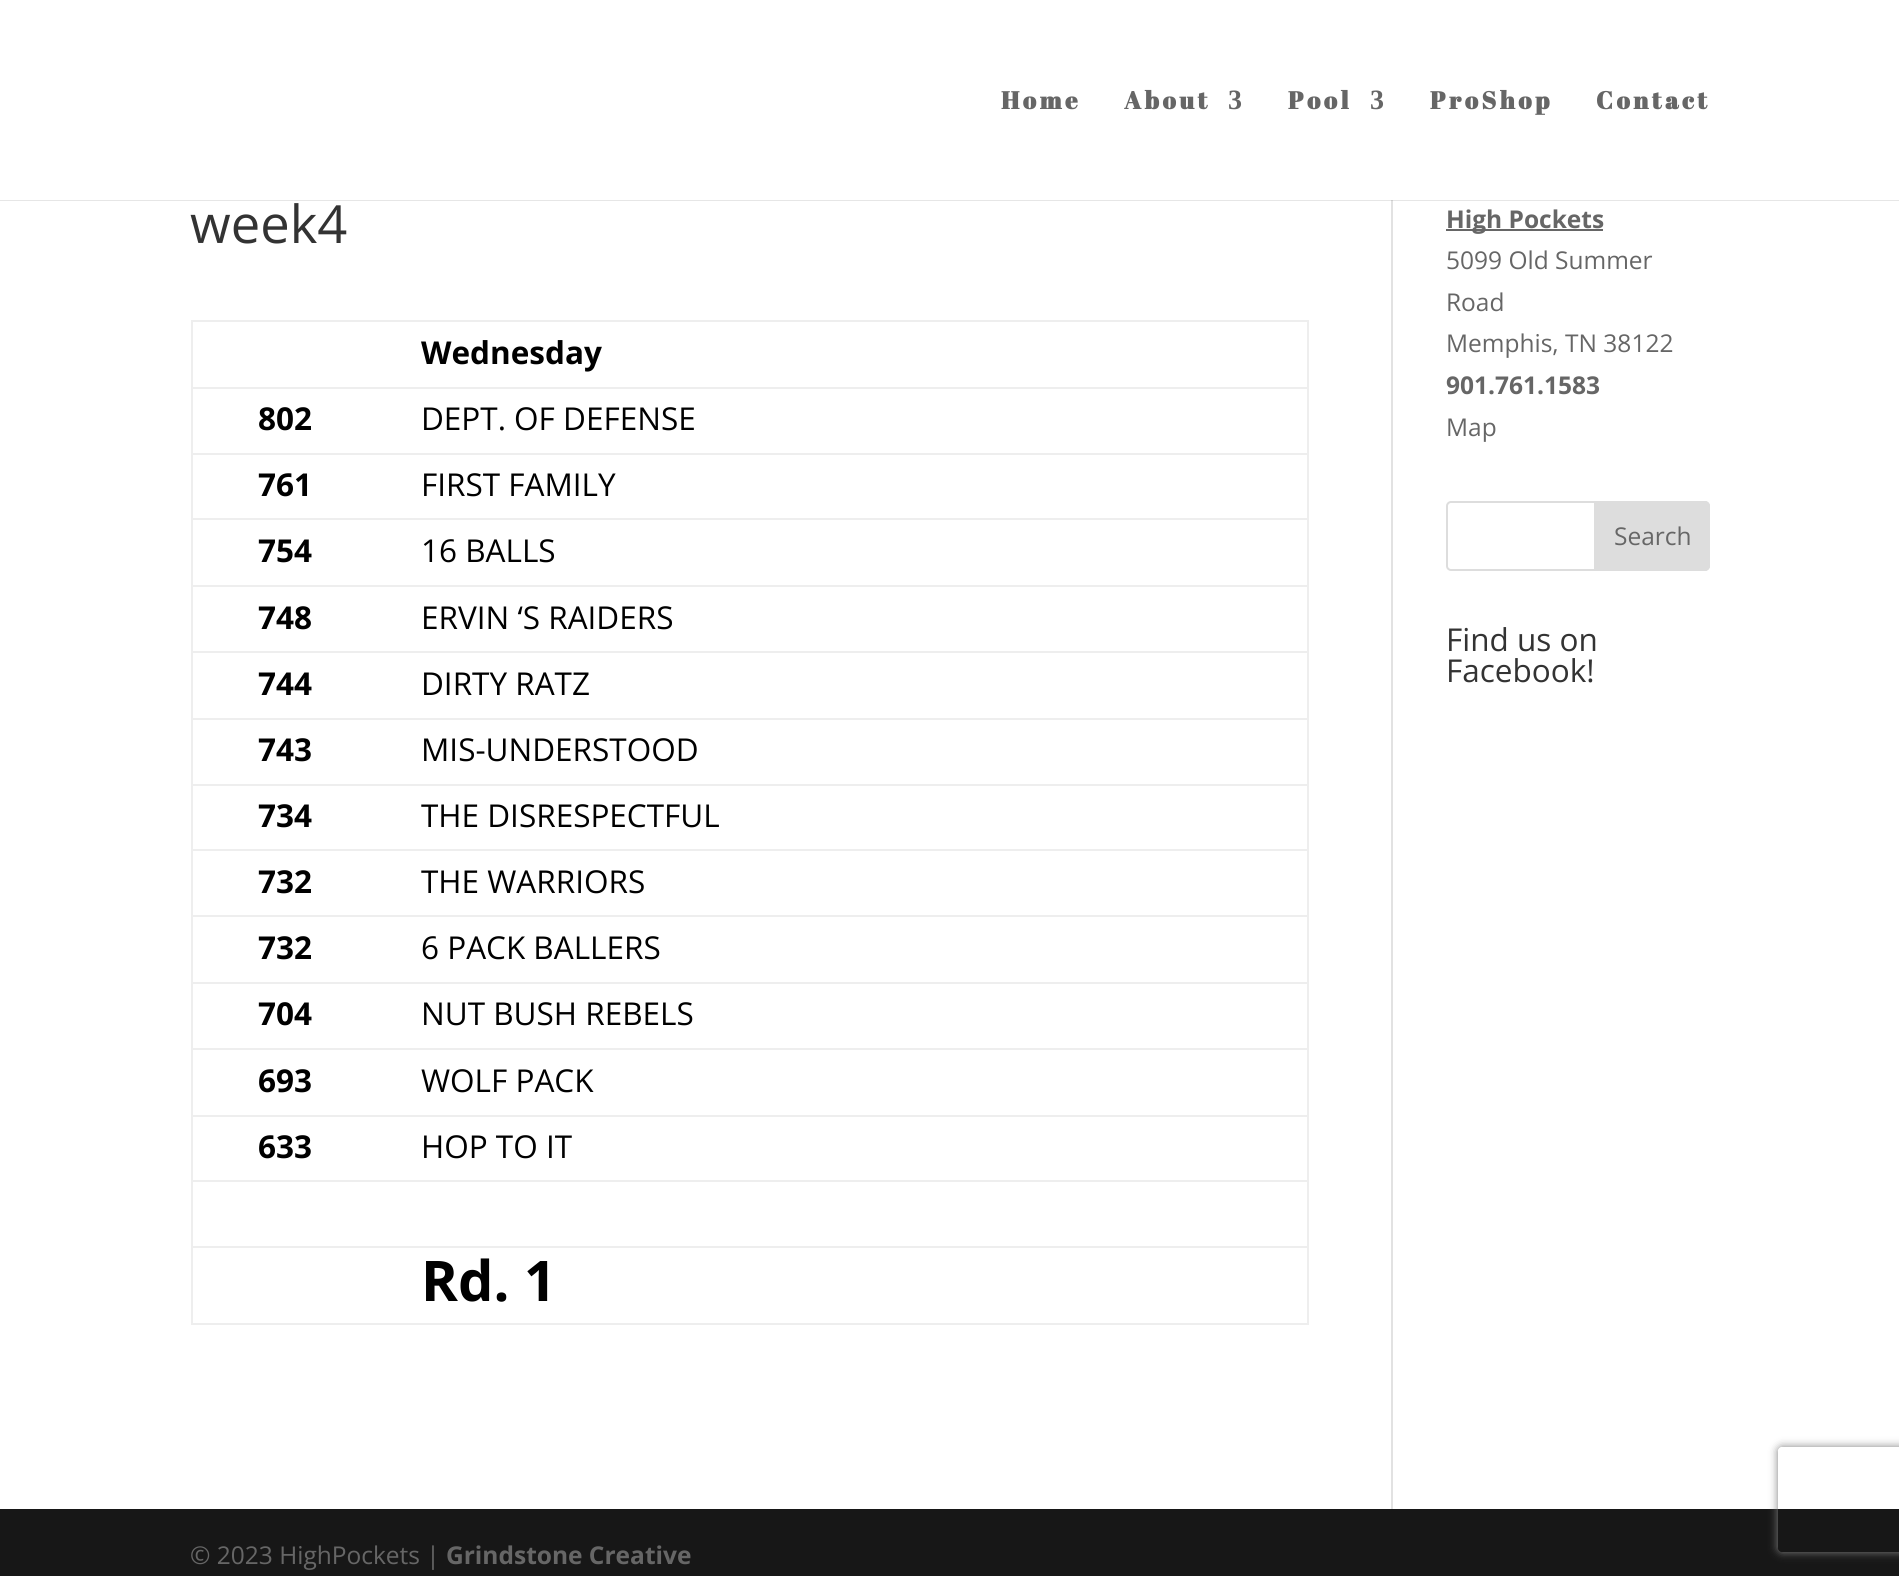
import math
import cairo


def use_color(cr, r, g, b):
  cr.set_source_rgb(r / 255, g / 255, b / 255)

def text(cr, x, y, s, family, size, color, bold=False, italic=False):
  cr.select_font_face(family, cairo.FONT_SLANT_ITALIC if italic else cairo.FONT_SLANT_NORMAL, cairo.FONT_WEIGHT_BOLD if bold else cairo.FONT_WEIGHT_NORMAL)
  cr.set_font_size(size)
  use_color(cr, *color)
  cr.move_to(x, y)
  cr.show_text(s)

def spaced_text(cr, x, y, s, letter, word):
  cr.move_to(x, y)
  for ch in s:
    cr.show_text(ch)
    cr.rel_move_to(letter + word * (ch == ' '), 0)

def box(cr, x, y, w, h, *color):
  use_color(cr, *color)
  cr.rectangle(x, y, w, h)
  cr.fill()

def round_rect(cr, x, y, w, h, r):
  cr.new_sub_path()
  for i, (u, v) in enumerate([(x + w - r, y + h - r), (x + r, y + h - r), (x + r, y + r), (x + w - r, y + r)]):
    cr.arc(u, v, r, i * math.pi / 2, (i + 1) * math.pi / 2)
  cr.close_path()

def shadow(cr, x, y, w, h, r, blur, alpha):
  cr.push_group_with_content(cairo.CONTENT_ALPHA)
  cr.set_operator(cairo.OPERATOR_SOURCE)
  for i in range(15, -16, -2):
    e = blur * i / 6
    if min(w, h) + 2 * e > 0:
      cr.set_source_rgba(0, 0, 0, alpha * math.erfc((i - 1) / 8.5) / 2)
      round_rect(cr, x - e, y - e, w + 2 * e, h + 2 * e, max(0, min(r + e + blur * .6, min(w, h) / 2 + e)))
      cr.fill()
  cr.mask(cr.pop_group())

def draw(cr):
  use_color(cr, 255, 255, 255)
  cr.paint()
  box(cr, 1391, 200, 2, 1309, 226, 226, 226)
  cr.set_source_rgba(0, 0, 0, 0.1)
  cr.new_path()
  cr.move_to(0, 200)
  cr.line_to(0, 201)
  cr.line_to(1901, 201)
  cr.line_to(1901, 2)
  cr.line_to(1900, 2)
  cr.line_to(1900, 200)
  cr.close_path()
  cr.fill()
  box(cr, 191, 320, 1118, 2, 238, 238, 238)
  box(cr, 1307, 320, 2, 1005, 238, 238, 238)
  box(cr, 191, 1323, 1118, 2, 238, 238, 238)
  box(cr, 191, 320, 2, 1005, 238, 238, 238)
  box(cr, 191, 387, 1118, 2, 238, 238, 238)
  box(cr, 191, 453, 1118, 2, 238, 238, 238)
  box(cr, 191, 518, 1118, 2, 238, 238, 238)
  box(cr, 191, 585, 1118, 2, 238, 238, 238)
  box(cr, 191, 651, 1118, 2, 238, 238, 238)
  box(cr, 191, 718, 1118, 2, 238, 238, 238)
  box(cr, 191, 784, 1118, 2, 238, 238, 238)
  box(cr, 191, 849, 1118, 2, 238, 238, 238)
  box(cr, 191, 915, 1118, 2, 238, 238, 238)
  box(cr, 191, 982, 1118, 2, 238, 238, 238)
  box(cr, 191, 1048, 1118, 2, 238, 238, 238)
  box(cr, 191, 1115, 1118, 2, 238, 238, 238)
  box(cr, 191, 1180, 1118, 2, 238, 238, 238)
  box(cr, 191, 1246, 1118, 2, 238, 238, 238)
  box(cr, 1446, 229, 157, 2, 102, 102, 102)
  round_rect(cr, 1447, 502, 262, 68, 4)
  use_color(cr, 221, 221, 221)
  cr.stroke()
  cr.new_path()
  cr.move_to(1595, 502)
  cr.line_to(1705, 502)
  cr.curve_to(1707, 502, 1709, 504, 1709, 506)
  cr.line_to(1709, 566)
  cr.curve_to(1709, 568, 1707, 570, 1705, 570)
  cr.line_to(1595, 570)
  cr.close_path()
  cr.fill_preserve()
  cr.stroke()
  box(cr, 0, 1509, 1899, 67, 23, 23, 23)
  cr.save()
  cr.set_fill_rule(cairo.FILL_RULE_EVEN_ODD)
  cr.new_path()
  cr.move_to(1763, 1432)
  cr.line_to(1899, 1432)
  cr.line_to(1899, 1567)
  cr.line_to(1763, 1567)
  cr.close_path()
  cr.move_to(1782, 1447)
  cr.line_to(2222, 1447)
  cr.curve_to(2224, 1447, 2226, 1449, 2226, 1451)
  cr.line_to(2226, 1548)
  cr.curve_to(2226, 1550, 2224, 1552, 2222, 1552)
  cr.line_to(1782, 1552)
  cr.curve_to(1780, 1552, 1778, 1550, 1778, 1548)
  cr.line_to(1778, 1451)
  cr.curve_to(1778, 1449, 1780, 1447, 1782, 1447)
  cr.close_path()
  cr.clip()
  use_color(cr, 128, 128, 128)
  shadow(cr, 1778, 1447, 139, 105, 4, 4.5, 1)
  cr.restore()
  cr.select_font_face("Abril Fatface", cairo.FONT_SLANT_NORMAL, cairo.FONT_WEIGHT_BOLD)
  cr.set_font_size(24.5)
  use_color(cr, 102, 102, 102)
  spaced_text(cr, 1001, 109, "Home", 3.5, 0)
  spaced_text(cr, 1124, 109, "About", 3.5, 0)
  cr.select_font_face("Liberation Serif", cairo.FONT_SLANT_NORMAL, cairo.FONT_WEIGHT_BOLD)
  cr.set_font_size(28)
  spaced_text(cr, 1228, 109, "3", 3.5, 0)
  cr.select_font_face("Abril Fatface", cairo.FONT_SLANT_NORMAL, cairo.FONT_WEIGHT_BOLD)
  cr.set_font_size(24.5)
  spaced_text(cr, 1288, 109, "Pool", 3.5, 0)
  cr.select_font_face("Liberation Serif", cairo.FONT_SLANT_NORMAL, cairo.FONT_WEIGHT_BOLD)
  cr.set_font_size(28)
  spaced_text(cr, 1370, 109, "3", 3.5, 0)
  cr.select_font_face("Abril Fatface", cairo.FONT_SLANT_NORMAL, cairo.FONT_WEIGHT_BOLD)
  cr.set_font_size(24.5)
  spaced_text(cr, 1430, 109, "ProShop", 3.5, 0)
  spaced_text(cr, 1596, 109, "Contact", 3.5, 0)
  text(cr, 190, 243, "week4", "Open Sans", 52.5, (51, 51, 51))
  text(cr, 421, 364, "Wednesday", "Open Sans", 31.5, (0, 0, 0), bold=True)
  text(cr, 258, 430, "802", "Open Sans", 31.5, (0, 0, 0), bold=True)
  text(cr, 421, 430, "DEPT. OF DEFENSE", "Open Sans", 31.5, (0, 0, 0))
  text(cr, 258, 496, "761", "Open Sans", 31.5, (0, 0, 0), bold=True)
  text(cr, 421, 496, "FIRST FAMILY", "Open Sans", 31.5, (0, 0, 0))
  text(cr, 258, 562, "754", "Open Sans", 31.5, (0, 0, 0), bold=True)
  text(cr, 421, 562, "16 BALLS", "Open Sans", 31.5, (0, 0, 0))
  text(cr, 258, 629, "748", "Open Sans", 31.5, (0, 0, 0), bold=True)
  text(cr, 421, 629, "ERVIN ‘S RAIDERS", "Open Sans", 31.5, (0, 0, 0))
  text(cr, 258, 695, "744", "Open Sans", 31.5, (0, 0, 0), bold=True)
  text(cr, 421, 695, "DIRTY RATZ", "Open Sans", 31.5, (0, 0, 0))
  text(cr, 258, 761, "743", "Open Sans", 31.5, (0, 0, 0), bold=True)
  text(cr, 421, 761, "MIS-UNDERSTOOD", "Open Sans", 31.5, (0, 0, 0))
  text(cr, 258, 827, "734", "Open Sans", 31.5, (0, 0, 0), bold=True)
  text(cr, 421, 827, "THE DISRESPECTFUL", "Open Sans", 31.5, (0, 0, 0))
  text(cr, 258, 893, "732", "Open Sans", 31.5, (0, 0, 0), bold=True)
  text(cr, 421, 893, "THE WARRIORS", "Open Sans", 31.5, (0, 0, 0))
  text(cr, 258, 959, "732", "Open Sans", 31.5, (0, 0, 0), bold=True)
  text(cr, 421, 959, "6 PACK BALLERS", "Open Sans", 31.5, (0, 0, 0))
  text(cr, 258, 1025, "704", "Open Sans", 31.5, (0, 0, 0), bold=True)
  text(cr, 421, 1025, "NUT BUSH REBELS", "Open Sans", 31.5, (0, 0, 0))
  text(cr, 258, 1092, "693", "Open Sans", 31.5, (0, 0, 0), bold=True)
  text(cr, 421, 1092, "WOLF PACK", "Open Sans", 31.5, (0, 0, 0))
  text(cr, 258, 1158, "633", "Open Sans", 31.5, (0, 0, 0), bold=True)
  text(cr, 421, 1158, "HOP TO IT", "Open Sans", 31.5, (0, 0, 0))
  text(cr, 421, 1301, "Rd. 1", "Open Sans", 56, (0, 0, 0), bold=True)
  text(cr, 1446, 228, "High Pockets", "Open Sans", 24.5, (102, 102, 102), bold=True)
  text(cr, 1446, 269, "5099 Old Summer", "Open Sans", 24.5, (102, 102, 102))
  text(cr, 1446, 311, "Road", "Open Sans", 24.5, (102, 102, 102))
  text(cr, 1446, 352, "Memphis, TN 38122", "Open Sans", 24.5, (102, 102, 102))
  text(cr, 1446, 394, "901.761.1583", "Open Sans", 24.5, (102, 102, 102), bold=True)
  text(cr, 1446, 436, "Map", "Open Sans", 24.5, (102, 102, 102))
  text(cr, 1614, 545, "Search", "Open Sans", 24.5, (102, 102, 102))
  text(cr, 1446, 651, "Find us on", "Open Sans", 31.5, (51, 51, 51))
  text(cr, 1446, 682, "Facebook!", "Open Sans", 31.5, (51, 51, 51))
  text(cr, 190, 1564, "© 2023 HighPockets |", "Open Sans", 24.5, (102, 102, 102))
  text(cr, 446, 1564, "Grindstone Creative", "Open Sans", 24.5, (102, 102, 102), bold=True)


surface = cairo.ImageSurface(cairo.FORMAT_RGB24, 1899, 1576)
cr = cairo.Context(surface)
options = cairo.FontOptions()
options.set_hint_metrics(cairo.HINT_METRICS_OFF)
options.set_hint_style(cairo.HINT_STYLE_NONE)
cr.set_font_options(options)
cr.set_miter_limit(4)
draw(cr)
surface.write_to_png("out.png")
